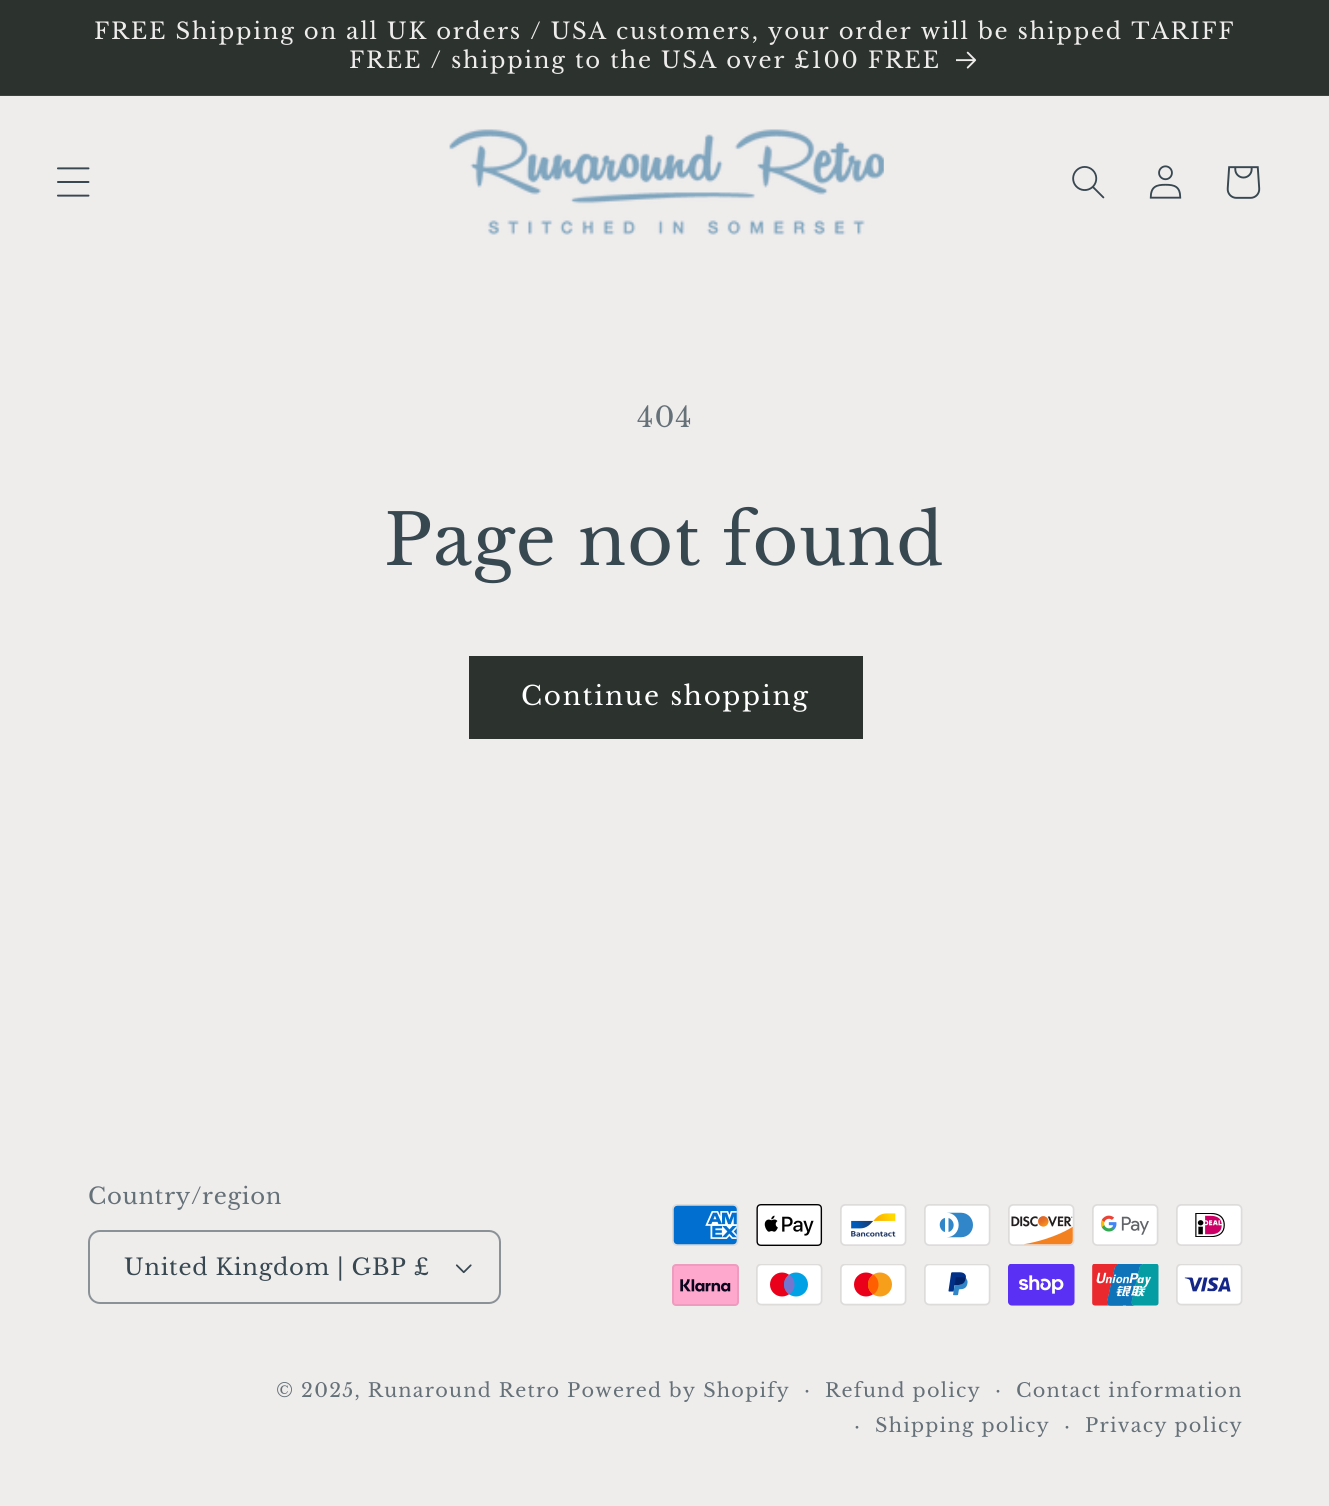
import math
import cairo


def use_color(cr, r, g, b):
  cr.set_source_rgb(r / 255, g / 255, b / 255)

def spaced_text(cr, x, y, s, letter, word):
  cr.move_to(x, y)
  for ch in s:
    cr.show_text(ch)
    cr.rel_move_to(letter + word * (ch == ' '), 0)

def box(cr, x, y, w, h, *color):
  use_color(cr, *color)
  cr.rectangle(x, y, w, h)
  cr.fill()

def round_rect(cr, x, y, w, h, r):
  cr.new_sub_path()
  for i, (u, v) in enumerate([(x + w - r, y + h - r), (x + r, y + h - r), (x + r, y + r), (x + w - r, y + r)]):
    cr.arc(u, v, r, i * math.pi / 2, (i + 1) * math.pi / 2)
  cr.close_path()

def picture(cr, path, x, y, w, h):
  cr.save()
  cr.set_source_surface(cairo.ImageSurface.create_from_png(path), x, y)
  cr.rectangle(x, y, w, h)
  cr.fill()
  cr.restore()

def draw(cr):
  use_color(cr, 239, 236, 236)
  cr.paint()
  box(cr, 0, 0, 1329, 95, 44, 51, 47)
  box(cr, 0, 95, 1329, 1, 60, 66, 62)
  picture(cr, "img_01.png", 956, 51, 21, 18)
  picture(cr, "img_02.png", 57, 167, 33, 30)
  picture(cr, "img_03.png", 449, 129, 435, 106)
  picture(cr, "img_04.png", 1072, 166, 33, 33)
  picture(cr, "img_05.png", 1149, 165, 33, 34)
  picture(cr, "img_06.png", 1226, 166, 35, 33)
  box(cr, 469, 656, 394, 83, 44, 51, 47)
  picture(cr, "img_07.png", 455, 1264, 17, 10)
  round_rect(cr, 89, 1231, 411, 72, 11)
  use_color(cr, 138, 146, 151)
  cr.stroke()
  picture(cr, "img_08.png", 672, 1204, 67, 42)
  picture(cr, "img_09.png", 756, 1204, 67, 42)
  picture(cr, "img_10.png", 840, 1204, 67, 42)
  picture(cr, "img_11.png", 924, 1204, 67, 42)
  picture(cr, "img_12.png", 1008, 1204, 67, 42)
  picture(cr, "img_13.png", 1092, 1204, 67, 42)
  picture(cr, "img_14.png", 1176, 1204, 67, 42)
  picture(cr, "img_15.png", 672, 1264, 67, 42)
  picture(cr, "img_16.png", 756, 1264, 67, 42)
  picture(cr, "img_17.png", 840, 1264, 67, 42)
  picture(cr, "img_18.png", 924, 1264, 67, 42)
  picture(cr, "img_19.png", 1008, 1264, 67, 42)
  picture(cr, "img_20.png", 1092, 1264, 67, 42)
  picture(cr, "img_21.png", 1176, 1264, 67, 42)
  cr.select_font_face("Libre Baskerville")
  cr.set_font_size(22.75)
  use_color(cr, 239, 236, 236)
  spaced_text(cr, 94, 39, "FREE Shipping on all UK orders / USA customers, your order will be shipped TARIFF", 1.75, 0)
  spaced_text(cr, 349, 68, "FREE / shipping to the USA over £100 FREE", 1.75, 0)
  cr.set_font_size(28)
  use_color(cr, 101, 113, 120)
  spaced_text(cr, 637, 427, "404", 1, 0)
  cr.set_font_size(70)
  use_color(cr, 55, 72, 81)
  spaced_text(cr, 384, 565, "Page not found", 1, 0)
  cr.set_font_size(26.25)
  use_color(cr, 255, 255, 255)
  spaced_text(cr, 521, 705, "Continue shopping", 1.75, 0)
  cr.set_font_size(22.75)
  use_color(cr, 101, 113, 120)
  spaced_text(cr, 88, 1204, "Country/region", 0.7, 0)
  use_color(cr, 55, 72, 81)
  spaced_text(cr, 124, 1275, "United Kingdom | GBP £", 0.7, 0)
  cr.set_font_size(19.25)
  use_color(cr, 101, 113, 120)
  spaced_text(cr, 276, 1397, "© 2025, Runaround Retro", 1.25, 0)
  spaced_text(cr, 567, 1397, "Powered by Shopify", 1.25, 0)
  cr.set_font_size(21)
  spaced_text(cr, 804, 1397, "·", 1.25, 0)
  cr.set_font_size(19.25)
  spaced_text(cr, 825, 1397, "Refund policy", 1.25, 0)
  cr.set_font_size(21)
  spaced_text(cr, 995, 1397, "·", 1.25, 0)
  cr.set_font_size(19.25)
  spaced_text(cr, 1016, 1397, "Contact information", 1.25, 0)
  cr.set_font_size(21)
  spaced_text(cr, 854, 1433, "·", 1.25, 0)
  cr.set_font_size(19.25)
  spaced_text(cr, 875, 1432, "Shipping policy", 1.25, 0)
  cr.set_font_size(21)
  spaced_text(cr, 1064, 1433, "·", 1.25, 0)
  cr.set_font_size(19.25)
  spaced_text(cr, 1085, 1432, "Privacy policy", 1.25, 0)


surface = cairo.ImageSurface(cairo.FORMAT_RGB24, 1329, 1506)
cr = cairo.Context(surface)
options = cairo.FontOptions()
options.set_hint_metrics(cairo.HINT_METRICS_OFF)
options.set_hint_style(cairo.HINT_STYLE_NONE)
cr.set_font_options(options)
cr.set_miter_limit(4)
draw(cr)
surface.write_to_png("out.png")
